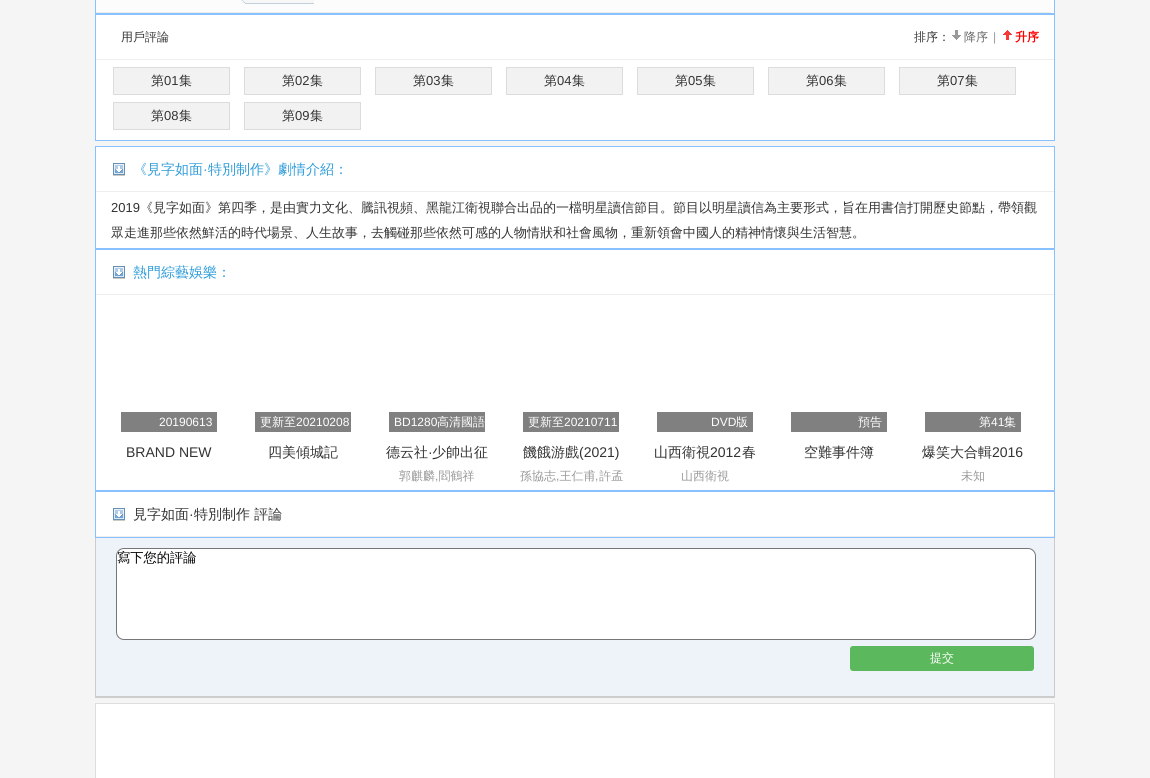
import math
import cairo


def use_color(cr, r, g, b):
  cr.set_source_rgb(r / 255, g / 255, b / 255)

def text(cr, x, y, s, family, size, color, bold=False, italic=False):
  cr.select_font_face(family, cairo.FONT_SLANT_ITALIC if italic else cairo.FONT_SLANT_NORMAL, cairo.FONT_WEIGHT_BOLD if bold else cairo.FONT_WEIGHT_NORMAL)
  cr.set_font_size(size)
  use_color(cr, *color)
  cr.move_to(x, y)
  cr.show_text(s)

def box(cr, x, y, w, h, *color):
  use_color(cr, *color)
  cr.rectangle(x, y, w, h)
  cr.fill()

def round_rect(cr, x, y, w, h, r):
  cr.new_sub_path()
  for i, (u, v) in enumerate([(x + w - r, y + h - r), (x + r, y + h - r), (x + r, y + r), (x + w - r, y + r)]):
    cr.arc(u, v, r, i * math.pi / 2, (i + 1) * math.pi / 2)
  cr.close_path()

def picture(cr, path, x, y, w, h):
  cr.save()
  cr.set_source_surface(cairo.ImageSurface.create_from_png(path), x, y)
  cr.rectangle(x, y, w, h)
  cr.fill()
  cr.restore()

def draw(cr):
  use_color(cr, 245, 245, 245)
  cr.paint()
  box(cr, 1051, 0, 3, 13, 255, 255, 255)
  cr.rectangle(95.5, -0.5, 959, 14)
  use_color(cr, 136, 193, 255)
  cr.set_line_width(1)
  cr.stroke()
  box(cr, 96, 0, 955, 12, 252, 252, 252)
  box(cr, 96, 12, 955, 1, 238, 238, 238)
  picture(cr, "img_01.png", 241, 0, 73, 4)
  use_color(cr, 255, 255, 255)
  cr.rectangle(95.5, 14.5, 959, 126)
  cr.fill_preserve()
  use_color(cr, 136, 193, 255)
  cr.stroke()
  box(cr, 96, 59, 958, 1, 238, 238, 238)
  picture(cr, "img_02.png", 952, 30, 9, 10)
  picture(cr, "img_03.png", 1003, 30, 9, 10)
  use_color(cr, 242, 242, 242)
  cr.rectangle(113.5, 67.5, 116, 27)
  cr.fill_preserve()
  use_color(cr, 220, 220, 220)
  cr.stroke()
  use_color(cr, 242, 242, 242)
  cr.rectangle(244.5, 67.5, 116, 27)
  cr.fill_preserve()
  use_color(cr, 220, 220, 220)
  cr.stroke()
  use_color(cr, 242, 242, 242)
  cr.rectangle(375.5, 67.5, 116, 27)
  cr.fill_preserve()
  use_color(cr, 220, 220, 220)
  cr.stroke()
  use_color(cr, 242, 242, 242)
  cr.rectangle(506.5, 67.5, 116, 27)
  cr.fill_preserve()
  use_color(cr, 220, 220, 220)
  cr.stroke()
  use_color(cr, 242, 242, 242)
  cr.rectangle(637.5, 67.5, 116, 27)
  cr.fill_preserve()
  use_color(cr, 220, 220, 220)
  cr.stroke()
  use_color(cr, 242, 242, 242)
  cr.rectangle(768.5, 67.5, 116, 27)
  cr.fill_preserve()
  use_color(cr, 220, 220, 220)
  cr.stroke()
  use_color(cr, 242, 242, 242)
  cr.rectangle(899.5, 67.5, 116, 27)
  cr.fill_preserve()
  use_color(cr, 220, 220, 220)
  cr.stroke()
  use_color(cr, 242, 242, 242)
  cr.rectangle(113.5, 102.5, 116, 27)
  cr.fill_preserve()
  use_color(cr, 220, 220, 220)
  cr.stroke()
  use_color(cr, 242, 242, 242)
  cr.rectangle(244.5, 102.5, 116, 27)
  cr.fill_preserve()
  use_color(cr, 220, 220, 220)
  cr.stroke()
  use_color(cr, 255, 255, 255)
  cr.rectangle(95.5, 146.5, 959, 102)
  cr.fill_preserve()
  use_color(cr, 136, 193, 255)
  cr.stroke()
  box(cr, 96, 191, 958, 1, 238, 238, 238)
  picture(cr, "img_04.png", 113, 163, 12, 13)
  use_color(cr, 255, 255, 255)
  cr.rectangle(95.5, 249.5, 959, 241)
  cr.fill_preserve()
  use_color(cr, 136, 193, 255)
  cr.stroke()
  box(cr, 96, 294, 958, 1, 238, 238, 238)
  picture(cr, "img_04.png", 113, 266, 12, 13)
  box(cr, 121, 412, 96, 20, 128, 128, 128)
  box(cr, 255, 412, 96, 20, 128, 128, 128)
  box(cr, 389, 412, 96, 20, 128, 128, 128)
  box(cr, 523, 412, 96, 20, 128, 128, 128)
  box(cr, 657, 412, 96, 20, 128, 128, 128)
  box(cr, 791, 412, 96, 20, 128, 128, 128)
  box(cr, 925, 412, 96, 20, 128, 128, 128)
  box(cr, 96, 492, 958, 44, 255, 255, 255)
  cr.rectangle(95.5, 491.5, 959, 46)
  use_color(cr, 136, 193, 255)
  cr.stroke()
  box(cr, 96, 536, 958, 1, 238, 238, 238)
  picture(cr, "img_04.png", 113, 508, 12, 13)
  box(cr, 96, 538, 958, 158, 238, 243, 250)
  box(cr, 1054, 538, 1, 159, 204, 204, 204)
  box(cr, 95, 696, 960, 2, 204, 204, 204)
  box(cr, 95, 538, 1, 159, 204, 204, 204)
  use_color(cr, 255, 255, 255)
  round_rect(cr, 116.5, 548.5, 919, 91, 7.5)
  cr.fill_preserve()
  use_color(cr, 118, 118, 118)
  cr.stroke()
  use_color(cr, 92, 184, 92)
  round_rect(cr, 850, 646, 184, 25, 3)
  cr.fill()
  use_color(cr, 255, 255, 255)
  cr.rectangle(95.5, 703.5, 959, 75)
  cr.fill_preserve()
  use_color(cr, 222, 222, 222)
  cr.stroke()
  text(cr, 121, 41, "用戶評論", "WenQuanYi Zen Hei Medium", 12, (51, 51, 51))
  text(cr, 914, 41, "排序：", "WenQuanYi Zen Hei Medium", 12, (51, 51, 51))
  text(cr, 964, 41, "降序", "WenQuanYi Zen Hei Medium", 12, (102, 102, 102))
  text(cr, 993, 41, "|", "Liberation Sans", 12, (153, 153, 153))
  text(cr, 1015, 41, "升序", "WenQuanYi Zen Hei", 12, (255, 0, 0), bold=True)
  text(cr, 151, 85, "第", "WenQuanYi Zen Hei Medium", 13, (51, 51, 51))
  text(cr, 164, 85, "01", "Liberation Sans", 13, (51, 51, 51))
  text(cr, 179, 85, "集", "WenQuanYi Zen Hei Medium", 13, (51, 51, 51))
  text(cr, 282, 85, "第", "WenQuanYi Zen Hei Medium", 13, (51, 51, 51))
  text(cr, 295, 85, "02", "Liberation Sans", 13, (51, 51, 51))
  text(cr, 310, 85, "集", "WenQuanYi Zen Hei Medium", 13, (51, 51, 51))
  text(cr, 413, 85, "第", "WenQuanYi Zen Hei Medium", 13, (51, 51, 51))
  text(cr, 426, 85, "03", "Liberation Sans", 13, (51, 51, 51))
  text(cr, 441, 85, "集", "WenQuanYi Zen Hei Medium", 13, (51, 51, 51))
  text(cr, 544, 85, "第", "WenQuanYi Zen Hei Medium", 13, (51, 51, 51))
  text(cr, 557, 85, "04", "Liberation Sans", 13, (51, 51, 51))
  text(cr, 572, 85, "集", "WenQuanYi Zen Hei Medium", 13, (51, 51, 51))
  text(cr, 675, 85, "第", "WenQuanYi Zen Hei Medium", 13, (51, 51, 51))
  text(cr, 688, 85, "05", "Liberation Sans", 13, (51, 51, 51))
  text(cr, 703, 85, "集", "WenQuanYi Zen Hei Medium", 13, (51, 51, 51))
  text(cr, 806, 85, "第", "WenQuanYi Zen Hei Medium", 13, (51, 51, 51))
  text(cr, 819, 85, "06", "Liberation Sans", 13, (51, 51, 51))
  text(cr, 834, 85, "集", "WenQuanYi Zen Hei Medium", 13, (51, 51, 51))
  text(cr, 937, 85, "第", "WenQuanYi Zen Hei Medium", 13, (51, 51, 51))
  text(cr, 950, 85, "07", "Liberation Sans", 13, (51, 51, 51))
  text(cr, 965, 85, "集", "WenQuanYi Zen Hei Medium", 13, (51, 51, 51))
  text(cr, 151, 120, "第", "WenQuanYi Zen Hei Medium", 13, (51, 51, 51))
  text(cr, 164, 120, "08", "Liberation Sans", 13, (51, 51, 51))
  text(cr, 179, 120, "集", "WenQuanYi Zen Hei Medium", 13, (51, 51, 51))
  text(cr, 282, 120, "第", "WenQuanYi Zen Hei Medium", 13, (51, 51, 51))
  text(cr, 295, 120, "09", "Liberation Sans", 13, (51, 51, 51))
  text(cr, 310, 120, "集", "WenQuanYi Zen Hei Medium", 13, (51, 51, 51))
  text(cr, 133, 174, "《見字如面", "WenQuanYi Zen Hei Medium", 14, (47, 157, 218))
  text(cr, 203, 174, "·", "Liberation Sans", 14, (47, 157, 218))
  text(cr, 208, 174, "特別制作》劇情介紹：", "WenQuanYi Zen Hei Medium", 14, (47, 157, 218))
  text(cr, 111, 212, "2019", "Liberation Sans", 13, (51, 51, 51))
  text(cr, 140, 212, "《見字如面》第四季，是由實力文化、騰訊視頻、黑龍江衛視聯合出品的一檔明星讀信節目。節目以明星讀信為主要形式，旨在用書信打開歷史節點，帶領觀", "WenQuanYi Zen Hei Medium", 13, (51, 51, 51))
  text(cr, 111, 237, "眾走進那些依然鮮活的時代場景、人生故事，去觸碰那些依然可感的人物情狀和社會風物，重新領會中國人的精神情懷與生活智慧。", "WenQuanYi Zen Hei Medium", 13, (51, 51, 51))
  text(cr, 133, 277, "熱門綜藝娛樂：", "WenQuanYi Zen Hei Medium", 14, (47, 157, 218))
  text(cr, 159, 426, "20190613", "Liberation Sans", 12, (255, 255, 255))
  text(cr, 126, 457, "BRAND NEW", "Liberation Sans", 14, (51, 51, 51))
  text(cr, 260, 426, "更新至", "WenQuanYi Zen Hei Medium", 12, (255, 255, 255))
  text(cr, 296, 426, "20210208", "Liberation Sans", 12, (255, 255, 255))
  text(cr, 268, 457, "四美傾城記", "WenQuanYi Zen Hei Medium", 14, (51, 51, 51))
  text(cr, 394, 426, "BD1280", "Liberation Sans", 12, (255, 255, 255))
  text(cr, 437, 426, "高清國語", "WenQuanYi Zen Hei Medium", 12, (255, 255, 255))
  text(cr, 386, 457, "德云社", "WenQuanYi Zen Hei Medium", 14, (51, 51, 51))
  text(cr, 428, 457, "·", "Liberation Sans", 14, (51, 51, 51))
  text(cr, 432, 457, "少帥出征", "WenQuanYi Zen Hei Medium", 14, (51, 51, 51))
  text(cr, 399, 480, "郭麒麟 閻鶴祥", "WenQuanYi Zen Hei Medium", 12, (153, 153, 153))
  text(cr, 435, 480, ",", "Liberation Sans", 12, (153, 153, 153))
  text(cr, 528, 426, "更新至", "WenQuanYi Zen Hei Medium", 12, (255, 255, 255))
  text(cr, 564, 426, "20210711", "Liberation Sans", 12, (255, 255, 255))
  text(cr, 523, 457, "饑餓游戲", "WenQuanYi Zen Hei Medium", 14, (51, 51, 51))
  text(cr, 579, 457, "(2021)", "Liberation Sans", 14, (51, 51, 51))
  text(cr, 520, 480, "孫協志 王仁甫 許孟", "WenQuanYi Zen Hei Medium", 12, (153, 153, 153))
  text(cr, 556, 480, ",", "Liberation Sans", 12, (153, 153, 153))
  text(cr, 595, 480, ",", "Liberation Sans", 12, (153, 153, 153))
  text(cr, 711, 426, "DVD", "Liberation Sans", 12, (255, 255, 255))
  text(cr, 736, 426, "版", "WenQuanYi Zen Hei Medium", 12, (255, 255, 255))
  text(cr, 654, 457, "山西衛視", "WenQuanYi Zen Hei Medium", 14, (51, 51, 51))
  text(cr, 710, 457, "2012", "Liberation Sans", 14, (51, 51, 51))
  text(cr, 742, 457, "春", "WenQuanYi Zen Hei Medium", 14, (51, 51, 51))
  text(cr, 681, 480, "山西衛視", "WenQuanYi Zen Hei Medium", 12, (153, 153, 153))
  text(cr, 858, 426, "預告", "WenQuanYi Zen Hei Medium", 12, (255, 255, 255))
  text(cr, 804, 457, "空難事件簿", "WenQuanYi Zen Hei Medium", 14, (51, 51, 51))
  text(cr, 979, 426, "第", "WenQuanYi Zen Hei Medium", 12, (255, 255, 255))
  text(cr, 991, 426, "41", "Liberation Sans", 12, (255, 255, 255))
  text(cr, 1004, 426, "集", "WenQuanYi Zen Hei Medium", 12, (255, 255, 255))
  text(cr, 922, 457, "爆笑大合輯", "WenQuanYi Zen Hei Medium", 14, (51, 51, 51))
  text(cr, 992, 457, "2016", "Liberation Sans", 14, (51, 51, 51))
  text(cr, 961, 480, "未知", "WenQuanYi Zen Hei Medium", 12, (153, 153, 153))
  text(cr, 133, 519, "見字如面", "WenQuanYi Zen Hei Medium", 14, (51, 51, 51))
  text(cr, 189, 519, "·", "Liberation Sans", 14, (51, 51, 51))
  text(cr, 194, 519, "特別制作 評論", "WenQuanYi Zen Hei Medium", 14, (51, 51, 51))
  text(cr, 117, 562, "寫下您的評論", "WenQuanYi Zen Hei Medium", 13.25, (0, 0, 0))
  text(cr, 930, 662, "提交", "WenQuanYi Zen Hei Medium", 12, (255, 255, 255))


surface = cairo.ImageSurface(cairo.FORMAT_RGB24, 1150, 778)
cr = cairo.Context(surface)
options = cairo.FontOptions()
options.set_hint_metrics(cairo.HINT_METRICS_OFF)
options.set_hint_style(cairo.HINT_STYLE_NONE)
cr.set_font_options(options)
cr.set_miter_limit(4)
draw(cr)
surface.write_to_png("out.png")
